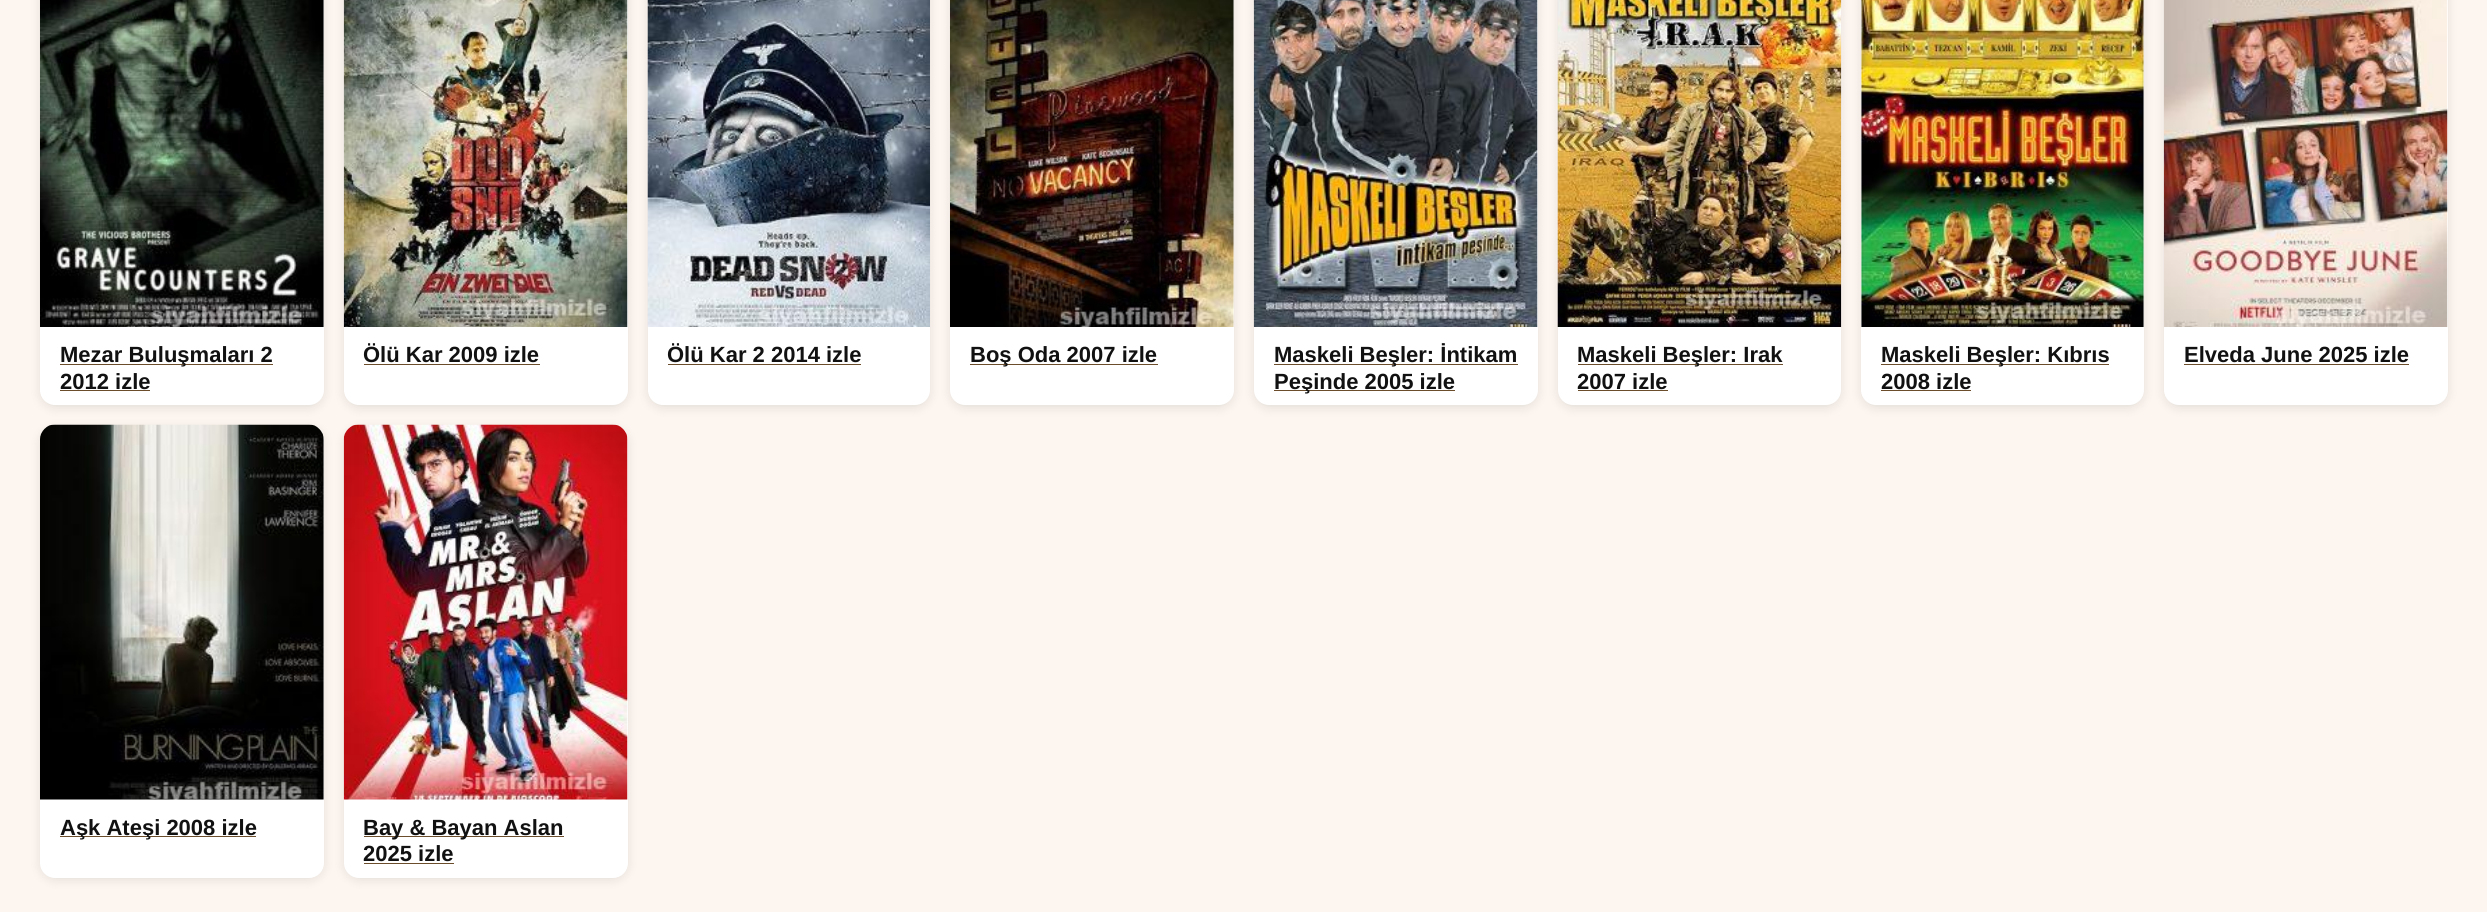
import math
import cairo


def use_color(cr, r, g, b):
  cr.set_source_rgb(r / 255, g / 255, b / 255)

def text(cr, x, y, s, family, size, color, bold=False, italic=False):
  cr.select_font_face(family, cairo.FONT_SLANT_ITALIC if italic else cairo.FONT_SLANT_NORMAL, cairo.FONT_WEIGHT_BOLD if bold else cairo.FONT_WEIGHT_NORMAL)
  cr.set_font_size(size)
  use_color(cr, *color)
  cr.move_to(x, y)
  cr.show_text(s)

def box(cr, x, y, w, h, *color):
  use_color(cr, *color)
  cr.rectangle(x, y, w, h)
  cr.fill()

def round_rect(cr, x, y, w, h, r):
  cr.new_sub_path()
  for i, (u, v) in enumerate([(x + w - r, y + h - r), (x + r, y + h - r), (x + r, y + r), (x + w - r, y + r)]):
    cr.arc(u, v, r, i * math.pi / 2, (i + 1) * math.pi / 2)
  cr.close_path()

def shadow(cr, x, y, w, h, r, blur, alpha):
  cr.push_group_with_content(cairo.CONTENT_ALPHA)
  cr.set_operator(cairo.OPERATOR_SOURCE)
  for i in range(15, -16, -2):
    e = blur * i / 6
    if min(w, h) + 2 * e > 0:
      cr.set_source_rgba(0, 0, 0, alpha * math.erfc((i - 1) / 8.5) / 2)
      round_rect(cr, x - e, y - e, w + 2 * e, h + 2 * e, max(0, min(r + e + blur * .6, min(w, h) / 2 + e)))
      cr.fill()
  cr.mask(cr.pop_group())

def picture(cr, path, x, y, w, h):
  cr.save()
  cr.set_source_surface(cairo.ImageSurface.create_from_png(path), x, y)
  cr.rectangle(x, y, w, h)
  cr.fill()
  cr.restore()

def draw(cr):
  use_color(cr, 253, 246, 240)
  cr.paint()
  use_color(cr, 0, 0, 0)
  shadow(cr, 40, -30, 284, 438, 15, 5, 0.1)
  use_color(cr, 255, 255, 255)
  round_rect(cr, 40, -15, 284, 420, 15)
  cr.fill()
  picture(cr, "img_01.png", 40, 0, 284, 327)
  box(cr, 60, 364, 213, 1, 107, 76, 43)
  box(cr, 60, 390, 90, 1, 107, 76, 43)
  use_color(cr, 0, 0, 0)
  shadow(cr, 344, -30, 284, 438, 15, 5, 0.1)
  use_color(cr, 255, 255, 255)
  round_rect(cr, 344, -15, 284, 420, 15)
  cr.fill()
  picture(cr, "img_02.png", 343, 0, 285, 327)
  box(cr, 364, 364, 176, 1, 107, 76, 43)
  use_color(cr, 0, 0, 0)
  shadow(cr, 648, -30, 282, 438, 15, 5, 0.1)
  use_color(cr, 255, 255, 255)
  round_rect(cr, 648, -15, 282, 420, 15)
  cr.fill()
  picture(cr, "img_03.png", 647, 0, 283, 327)
  box(cr, 668, 364, 193, 1, 107, 76, 43)
  use_color(cr, 0, 0, 0)
  shadow(cr, 950, -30, 284, 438, 15, 5, 0.1)
  use_color(cr, 255, 255, 255)
  round_rect(cr, 950, -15, 284, 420, 15)
  cr.fill()
  picture(cr, "img_04.png", 950, 0, 284, 327)
  box(cr, 970, 364, 188, 1, 107, 76, 43)
  use_color(cr, 0, 0, 0)
  shadow(cr, 1254, -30, 284, 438, 15, 5, 0.1)
  use_color(cr, 255, 255, 255)
  round_rect(cr, 1254, -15, 284, 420, 15)
  cr.fill()
  picture(cr, "img_05.png", 1253, 0, 285, 327)
  box(cr, 1274, 364, 244, 1, 107, 76, 43)
  box(cr, 1274, 390, 181, 1, 107, 76, 43)
  use_color(cr, 0, 0, 0)
  shadow(cr, 1558, -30, 283, 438, 15, 5, 0.1)
  use_color(cr, 255, 255, 255)
  round_rect(cr, 1558, -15, 283, 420, 15)
  cr.fill()
  picture(cr, "img_06.png", 1557, 0, 285, 327)
  box(cr, 1578, 364, 205, 1, 107, 76, 43)
  box(cr, 1578, 390, 90, 1, 107, 76, 43)
  use_color(cr, 0, 0, 0)
  shadow(cr, 1861, -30, 283, 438, 15, 5, 0.1)
  use_color(cr, 255, 255, 255)
  round_rect(cr, 1861, -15, 283, 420, 15)
  cr.fill()
  picture(cr, "img_07.png", 1861, 0, 283, 327)
  box(cr, 1881, 364, 228, 1, 107, 76, 43)
  box(cr, 1881, 390, 90, 1, 107, 76, 43)
  use_color(cr, 0, 0, 0)
  shadow(cr, 2164, -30, 284, 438, 15, 5, 0.1)
  use_color(cr, 255, 255, 255)
  round_rect(cr, 2164, -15, 284, 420, 15)
  cr.fill()
  picture(cr, "img_08.png", 2163, 0, 285, 327)
  box(cr, 2184, 364, 225, 1, 107, 76, 43)
  use_color(cr, 0, 0, 0)
  shadow(cr, 40, 428, 284, 452, 15, 5, 0.1)
  use_color(cr, 255, 255, 255)
  round_rect(cr, 40, 425, 284, 453, 15)
  cr.fill()
  picture(cr, "img_09.png", 40, 424, 284, 376)
  box(cr, 60, 836, 196, 1, 107, 76, 43)
  use_color(cr, 0, 0, 0)
  shadow(cr, 344, 428, 284, 452, 15, 5, 0.1)
  use_color(cr, 255, 255, 255)
  round_rect(cr, 344, 425, 284, 453, 15)
  cr.fill()
  picture(cr, "img_10.png", 343, 424, 285, 376)
  box(cr, 364, 836, 200, 1, 107, 76, 43)
  box(cr, 364, 863, 90, 1, 107, 76, 43)
  text(cr, 60, 362, "Mezar Buluşmaları 2", "Liberation Sans", 22, (17, 17, 17), bold=True)
  text(cr, 60, 389, "2012 izle", "Liberation Sans", 22, (17, 17, 17), bold=True)
  text(cr, 363, 362, "Ölü Kar 2009 izle", "Liberation Sans", 22, (17, 17, 17), bold=True)
  text(cr, 667, 362, "Ölü Kar 2 2014 izle", "Liberation Sans", 22, (17, 17, 17), bold=True)
  text(cr, 970, 362, "Boş Oda 2007 izle", "Liberation Sans", 22, (17, 17, 17), bold=True)
  text(cr, 1274, 362, "Maskeli Beşler: İntikam", "Liberation Sans", 22, (17, 17, 17), bold=True)
  text(cr, 1274, 389, "Peşinde 2005 izle", "Liberation Sans", 22, (17, 17, 17), bold=True)
  text(cr, 1577, 362, "Maskeli Beşler: Irak", "Liberation Sans", 22, (17, 17, 17), bold=True)
  text(cr, 1577, 389, "2007 izle", "Liberation Sans", 22, (17, 17, 17), bold=True)
  text(cr, 1881, 362, "Maskeli Beşler: Kıbrıs", "Liberation Sans", 22, (17, 17, 17), bold=True)
  text(cr, 1881, 389, "2008 izle", "Liberation Sans", 22, (17, 17, 17), bold=True)
  text(cr, 2184, 362, "Elveda June 2025 izle", "Liberation Sans", 22, (17, 17, 17), bold=True)
  text(cr, 60, 835, "Aşk Ateşi 2008 izle", "Liberation Sans", 22, (17, 17, 17), bold=True)
  text(cr, 363, 835, "Bay & Bayan Aslan", "Liberation Sans", 22, (17, 17, 17), bold=True)
  text(cr, 363, 861, "2025 izle", "Liberation Sans", 22, (17, 17, 17), bold=True)


surface = cairo.ImageSurface(cairo.FORMAT_RGB24, 2487, 912)
cr = cairo.Context(surface)
options = cairo.FontOptions()
options.set_hint_metrics(cairo.HINT_METRICS_OFF)
options.set_hint_style(cairo.HINT_STYLE_NONE)
cr.set_font_options(options)
cr.set_miter_limit(4)
draw(cr)
surface.write_to_png("out.png")
